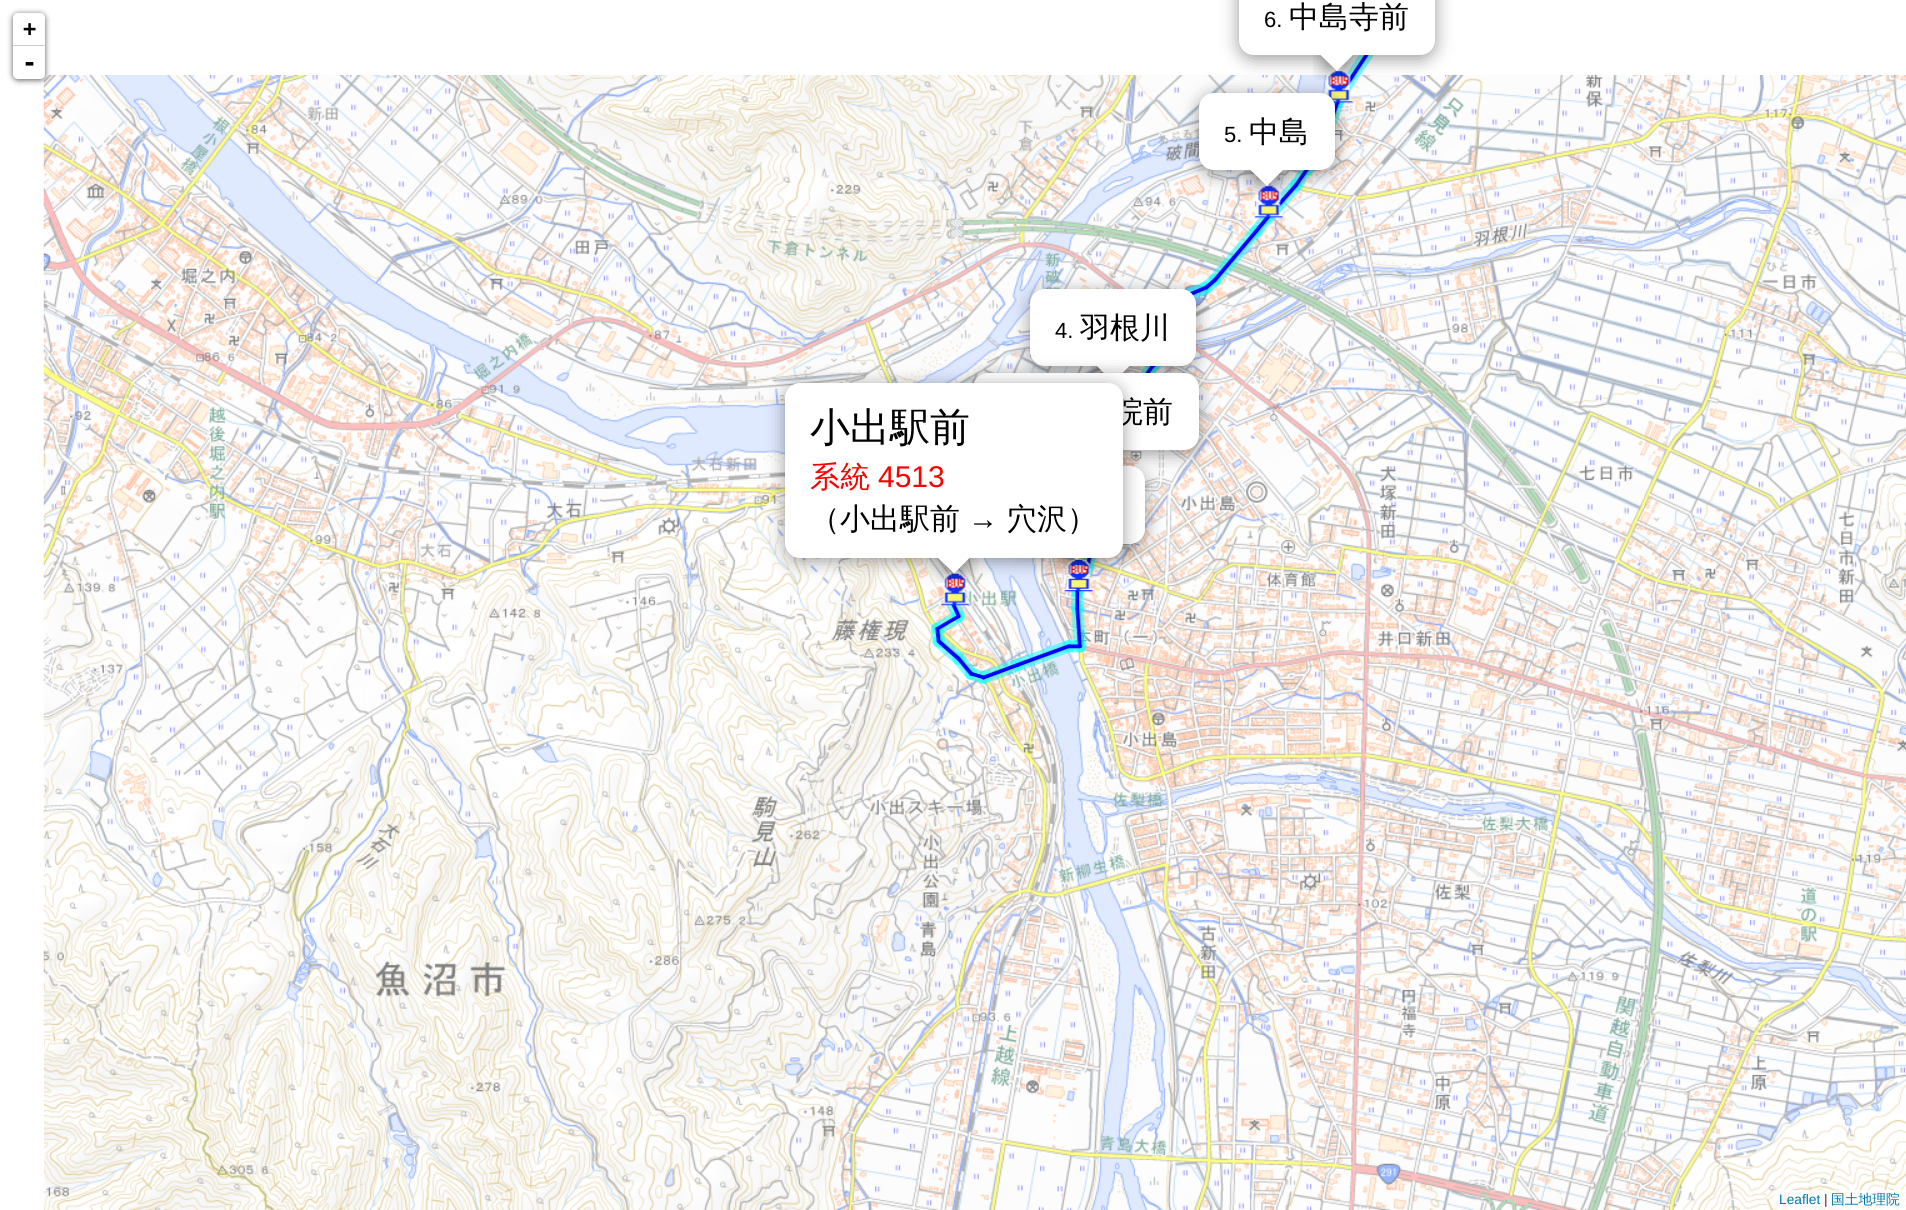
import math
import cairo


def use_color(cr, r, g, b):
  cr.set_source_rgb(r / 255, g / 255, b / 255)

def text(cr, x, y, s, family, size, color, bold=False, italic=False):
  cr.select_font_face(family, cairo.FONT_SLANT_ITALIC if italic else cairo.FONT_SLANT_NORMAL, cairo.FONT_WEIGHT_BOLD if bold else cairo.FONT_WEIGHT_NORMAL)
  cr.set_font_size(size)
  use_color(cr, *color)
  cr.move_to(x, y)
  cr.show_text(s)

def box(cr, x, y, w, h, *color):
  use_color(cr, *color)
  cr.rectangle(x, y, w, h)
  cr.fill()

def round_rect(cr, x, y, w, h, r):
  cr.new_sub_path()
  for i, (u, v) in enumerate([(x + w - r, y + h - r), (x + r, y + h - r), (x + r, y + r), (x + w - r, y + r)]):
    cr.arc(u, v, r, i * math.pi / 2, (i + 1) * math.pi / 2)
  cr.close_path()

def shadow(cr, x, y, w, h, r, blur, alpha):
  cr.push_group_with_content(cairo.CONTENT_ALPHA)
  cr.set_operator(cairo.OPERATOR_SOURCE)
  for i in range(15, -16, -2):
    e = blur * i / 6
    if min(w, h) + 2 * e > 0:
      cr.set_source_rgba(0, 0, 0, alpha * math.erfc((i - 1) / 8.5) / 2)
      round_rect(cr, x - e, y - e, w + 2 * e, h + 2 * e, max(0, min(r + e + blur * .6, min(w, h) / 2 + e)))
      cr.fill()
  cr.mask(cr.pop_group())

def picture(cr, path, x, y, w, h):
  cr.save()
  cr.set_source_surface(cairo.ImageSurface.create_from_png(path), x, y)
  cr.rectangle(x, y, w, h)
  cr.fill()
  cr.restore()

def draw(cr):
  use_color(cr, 255, 255, 255)
  cr.paint()
  picture(cr, "img_08.png", 683, 75, 321, 320)
  picture(cr, "img_09.png", 1003, 75, 321, 320)
  picture(cr, "img_10.png", 1323, 75, 321, 320)
  picture(cr, "img_14.png", 683, 395, 321, 320)
  picture(cr, "img_15.png", 1003, 395, 321, 320)
  picture(cr, "img_16.png", 1323, 395, 321, 320)
  picture(cr, "img_01.png", 931, 55, 444, 629)
  picture(cr, "img_02.png", 1326, 71, 29, 33)
  use_color(cr, 0, 0, 0)
  shadow(cr, 1239, -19, 196, 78, 15, 9, 0.4)
  use_color(cr, 255, 255, 255)
  cr.new_path()
  cr.move_to(1239, 0)
  cr.line_to(1435, 0)
  cr.line_to(1435, 40)
  cr.curve_to(1435, 48.5, 1428.5, 55, 1420, 55)
  cr.line_to(1254, 55)
  cr.curve_to(1245.5, 55, 1239, 48.5, 1239, 40)
  cr.close_path()
  cr.fill()
  cr.save()
  cr.rectangle(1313, 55, 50, 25)
  cr.clip()
  use_color(cr, 0, 0, 0)
  shadow(cr, 1325, 46, 24, 24, 0, 9, 0.4)
  cr.restore()
  cr.save()
  cr.rectangle(1313, 55, 50, 25)
  cr.clip()
  cr.new_path()
  cr.move_to(1337, 37.5)
  cr.line_to(1353.5, 54.5)
  cr.line_to(1337, 71)
  cr.line_to(1320, 54.5)
  cr.close_path()
  cr.fill()
  cr.restore()
  picture(cr, "img_03.png", 1253, 186, 31, 33)
  use_color(cr, 0, 0, 0)
  shadow(cr, 1199, 96, 136, 78, 15, 9, 0.4)
  use_color(cr, 255, 255, 255)
  round_rect(cr, 1199, 93, 136, 77, 15)
  cr.fill()
  cr.save()
  cr.rectangle(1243, 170, 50, 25)
  cr.clip()
  use_color(cr, 0, 0, 0)
  shadow(cr, 1255, 161, 24, 24, 0, 9, 0.4)
  cr.restore()
  cr.save()
  cr.rectangle(1243, 170, 50, 25)
  cr.clip()
  cr.new_path()
  cr.move_to(1267, 152.5)
  cr.line_to(1283.5, 169.5)
  cr.line_to(1267, 186)
  cr.line_to(1250, 169.5)
  cr.close_path()
  cr.fill()
  cr.restore()
  use_color(cr, 0, 0, 0)
  shadow(cr, 1030, 293, 166, 77, 15, 9, 0.4)
  use_color(cr, 255, 255, 255)
  round_rect(cr, 1030, 289, 166, 77, 15)
  cr.fill()
  cr.save()
  cr.rectangle(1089, 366, 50, 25)
  cr.clip()
  use_color(cr, 0, 0, 0)
  shadow(cr, 1101, 358, 24, 23, 0, 9, 0.4)
  cr.restore()
  cr.save()
  cr.rectangle(1089, 366, 50, 25)
  cr.clip()
  cr.new_path()
  cr.move_to(1113, 349)
  cr.line_to(1130, 365.5)
  cr.line_to(1113, 382.5)
  cr.line_to(1096.5, 365.5)
  cr.close_path()
  cr.fill()
  cr.restore()
  use_color(cr, 0, 0, 0)
  shadow(cr, 973, 376, 226, 78, 15, 9, 0.4)
  use_color(cr, 255, 255, 255)
  round_rect(cr, 973, 373, 226, 77, 15)
  cr.fill()
  picture(cr, "img_05.png", 1062, 560, 33, 32)
  use_color(cr, 0, 0, 0)
  shadow(cr, 1009, 470, 136, 78, 15, 9, 0.4)
  use_color(cr, 255, 255, 255)
  round_rect(cr, 1009, 466, 136, 78, 15)
  cr.fill()
  cr.save()
  cr.rectangle(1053, 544, 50, 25)
  cr.clip()
  use_color(cr, 0, 0, 0)
  shadow(cr, 1065, 535, 24, 24, 0, 9, 0.4)
  cr.restore()
  cr.new_path()
  cr.move_to(1077, 526.5)
  cr.line_to(1093.5, 543)
  cr.line_to(1077, 560)
  cr.line_to(1060, 543)
  cr.close_path()
  cr.fill()
  picture(cr, "img_04.png", 938, 573, 33, 33)
  use_color(cr, 0, 0, 0)
  shadow(cr, 785, 386, 338, 175, 15, 9, 0.4)
  picture(cr, "img_07.png", 363, 75, 321, 320)
  picture(cr, "img_06.png", 43, 75, 321, 320)
  picture(cr, "img_11.png", 1644, 75, 262, 320)
  picture(cr, "img_13.png", 363, 395, 321, 320)
  picture(cr, "img_12.png", 43, 395, 321, 320)
  picture(cr, "img_17.png", 1644, 395, 262, 320)
  picture(cr, "img_20.png", 683, 715, 321, 320)
  picture(cr, "img_19.png", 363, 715, 321, 320)
  picture(cr, "img_18.png", 43, 715, 321, 320)
  picture(cr, "img_21.png", 1003, 715, 321, 320)
  picture(cr, "img_22.png", 1323, 715, 321, 320)
  picture(cr, "img_23.png", 1644, 715, 262, 320)
  picture(cr, "img_24.png", 44, 1035, 320, 175)
  picture(cr, "img_25.png", 364, 1035, 320, 175)
  picture(cr, "img_26.png", 684, 1035, 320, 175)
  picture(cr, "img_27.png", 1004, 1035, 320, 175)
  picture(cr, "img_28.png", 1324, 1035, 320, 175)
  picture(cr, "img_29.png", 1644, 1035, 262, 175)
  shadow(cr, 13, 14, 32, 66, 5, 3, 0.65)
  use_color(cr, 255, 255, 255)
  cr.new_path()
  cr.move_to(18, 13)
  cr.line_to(40, 13)
  cr.curve_to(43, 13, 45, 15, 45, 18)
  cr.line_to(45, 46)
  cr.line_to(13, 46)
  cr.line_to(13, 18)
  cr.curve_to(13, 15, 15, 13, 18, 13)
  cr.close_path()
  cr.fill()
  box(cr, 13, 45, 32, 1, 204, 204, 204)
  use_color(cr, 255, 255, 255)
  cr.new_path()
  cr.move_to(13, 46)
  cr.line_to(45, 46)
  cr.line_to(45, 74)
  cr.curve_to(45, 77, 43, 79, 40, 79)
  cr.line_to(18, 79)
  cr.curve_to(15, 79, 13, 77, 13, 74)
  cr.close_path()
  cr.fill()
  cr.set_source_rgba(1, 1, 1, 0.7)
  cr.rectangle(1773, 1190, 133, 20)
  cr.fill()
  text(cr, 1264, 27, "6.", "Liberation Sans", 22, (0, 0, 0))
  text(cr, 1289, 27, "中島寺前", "WenQuanYi Zen Hei Medium", 30, (0, 0, 0))
  text(cr, 1224, 142, "5.", "Liberation Sans", 22, (0, 0, 0))
  text(cr, 1249, 142, "中島", "WenQuanYi Zen Hei Medium", 30, (0, 0, 0))
  text(cr, 1055, 338, "4.", "Liberation Sans", 22, (0, 0, 0))
  text(cr, 1080, 338, "羽根川", "WenQuanYi Zen Hei Medium", 30, (0, 0, 0))
  text(cr, 1113, 422, "院前", "WenQuanYi Zen Hei Medium", 30, (0, 0, 0))
  use_color(cr, 255, 255, 255)
  round_rect(cr, 785, 383, 338, 175, 15)
  cr.fill()
  cr.save()
  cr.rectangle(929, 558, 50, 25)
  cr.clip()
  use_color(cr, 0, 0, 0)
  shadow(cr, 943, 549, 23, 24, 0, 9, 0.4)
  cr.restore()
  cr.save()
  cr.rectangle(929, 558, 50, 25)
  cr.clip()
  cr.new_path()
  cr.move_to(954, 540)
  cr.line_to(970.5, 557)
  cr.line_to(954, 573.5)
  cr.line_to(937, 557)
  cr.close_path()
  cr.fill()
  cr.restore()
  text(cr, 1007, 529, "穴沢）", "WenQuanYi Zen Hei Medium", 30, (0, 0, 0))
  text(cr, 968, 529, "→", "Liberation Sans", 30, (0, 0, 0))
  text(cr, 810, 529, "（小出駅前", "WenQuanYi Zen Hei Medium", 30, (0, 0, 0))
  text(cr, 878, 487, "4513", "Liberation Sans", 30, (255, 0, 0))
  text(cr, 810, 487, "系統", "WenQuanYi Zen Hei Medium", 30, (255, 0, 0))
  text(cr, 810, 441, "小出駅前", "WenQuanYi Zen Hei Medium", 40, (0, 0, 0))
  text(cr, 23, 36, "+", "DejaVu Sans Mono", 22, (0, 0, 0), bold=True)
  text(cr, 22, 71, "-", "DejaVu Sans Mono", 25, (0, 0, 0), bold=True)
  text(cr, 1779, 1204, "Leaflet", "Liberation Sans", 13.75, (0, 120, 168))
  text(cr, 1824, 1204, "|", "Liberation Sans", 13.75, (51, 51, 51))
  text(cr, 1831, 1204, "国土地理院", "WenQuanYi Zen Hei Medium", 13.75, (0, 120, 168))


surface = cairo.ImageSurface(cairo.FORMAT_RGB24, 1906, 1210)
cr = cairo.Context(surface)
options = cairo.FontOptions()
options.set_hint_metrics(cairo.HINT_METRICS_OFF)
options.set_hint_style(cairo.HINT_STYLE_NONE)
cr.set_font_options(options)
cr.set_miter_limit(4)
draw(cr)
surface.write_to_png("out.png")
